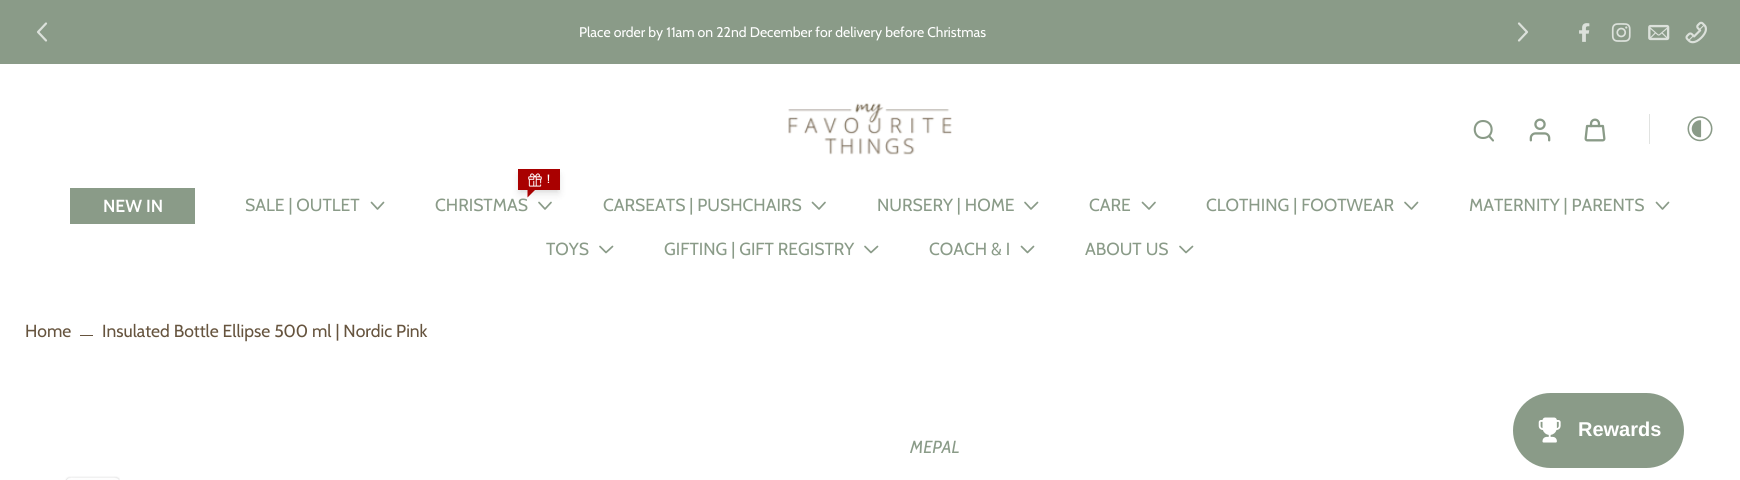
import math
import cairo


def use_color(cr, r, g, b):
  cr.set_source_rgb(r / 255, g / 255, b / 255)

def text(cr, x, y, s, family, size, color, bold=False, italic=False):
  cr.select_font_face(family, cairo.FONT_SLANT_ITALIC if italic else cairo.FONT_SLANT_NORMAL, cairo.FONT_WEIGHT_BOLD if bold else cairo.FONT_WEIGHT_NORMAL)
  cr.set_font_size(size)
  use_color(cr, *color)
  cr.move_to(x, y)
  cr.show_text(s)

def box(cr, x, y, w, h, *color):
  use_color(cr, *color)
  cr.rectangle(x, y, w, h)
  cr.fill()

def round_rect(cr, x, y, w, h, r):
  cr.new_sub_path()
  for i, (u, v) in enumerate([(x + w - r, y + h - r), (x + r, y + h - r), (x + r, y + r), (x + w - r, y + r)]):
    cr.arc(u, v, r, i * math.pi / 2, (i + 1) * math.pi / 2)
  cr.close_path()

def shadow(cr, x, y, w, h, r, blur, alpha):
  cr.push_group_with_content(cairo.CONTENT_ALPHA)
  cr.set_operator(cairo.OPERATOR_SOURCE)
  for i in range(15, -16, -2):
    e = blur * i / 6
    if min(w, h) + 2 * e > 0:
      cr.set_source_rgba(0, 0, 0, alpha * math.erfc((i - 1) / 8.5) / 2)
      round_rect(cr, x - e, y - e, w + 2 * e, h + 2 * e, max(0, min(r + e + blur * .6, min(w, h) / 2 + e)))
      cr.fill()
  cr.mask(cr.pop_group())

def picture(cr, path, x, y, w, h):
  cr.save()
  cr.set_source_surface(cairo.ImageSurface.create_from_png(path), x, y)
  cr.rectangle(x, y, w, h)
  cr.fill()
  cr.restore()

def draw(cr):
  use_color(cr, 255, 255, 255)
  cr.paint()
  box(cr, 0, 0, 1740, 64, 138, 155, 136)
  cr.new_path()
  cr.move_to(46, 23.5)
  cr.line_to(38, 32)
  cr.line_to(46, 40.5)
  use_color(cr, 220, 225, 219)
  cr.set_line_width(2.2)
  cr.set_line_cap(cairo.LINE_CAP_ROUND)
  cr.set_line_join(cairo.LINE_JOIN_ROUND)
  cr.stroke()
  cr.new_path()
  cr.move_to(1519, 40.5)
  cr.line_to(1527, 32)
  cr.line_to(1519, 23.5)
  cr.stroke()
  picture(cr, "img_01.png", 1579, 23, 11, 19)
  picture(cr, "img_02.png", 1611, 23, 20, 19)
  picture(cr, "img_03.png", 1648, 24, 22, 17)
  picture(cr, "img_04.png", 1685, 21, 22, 23)
  picture(cr, "img_05.png", 788, 103, 164, 52)
  cr.new_path()
  cr.move_to(1483, 138)
  cr.curve_to(1494.5, 138, 1494.5, 121, 1483, 121)
  cr.curve_to(1472, 121, 1472, 138, 1483, 138)
  cr.close_path()
  use_color(cr, 138, 155, 136)
  cr.set_line_width(2.1)
  cr.set_line_cap(cairo.LINE_CAP_BUTT)
  cr.set_line_join(cairo.LINE_JOIN_MITER)
  cr.stroke()
  cr.new_path()
  cr.move_to(1489, 136)
  cr.line_to(1493, 140.5)
  cr.set_line_cap(cairo.LINE_CAP_ROUND)
  cr.stroke()
  picture(cr, "img_06.png", 1529, 118, 22, 24)
  picture(cr, "img_07.png", 1584, 118, 22, 24)
  box(cr, 1649, 114, 1, 30, 225, 227, 225)
  picture(cr, "img_08.png", 1687, 116, 26, 26)
  box(cr, 70, 188, 125, 36, 138, 155, 136)
  cr.new_path()
  cr.move_to(371.5, 202.5)
  cr.line_to(377.5, 209)
  cr.line_to(383.5, 202.5)
  cr.set_line_width(1.7)
  cr.set_line_join(cairo.LINE_JOIN_ROUND)
  cr.stroke()
  use_color(cr, 0, 0, 0)
  shadow(cr, 520, 174, 38, 16, 0, 2.5, 0.1)
  cr.new_path()
  cr.move_to(539, 202.5)
  cr.line_to(545, 209)
  cr.line_to(551, 202.5)
  use_color(cr, 138, 155, 136)
  cr.stroke()
  use_color(cr, 0, 0, 0)
  shadow(cr, 519, 175, 40, 19, 0, 4, 0.1)
  box(cr, 518, 169, 42, 21, 169, 0, 0)
  picture(cr, "img_09.png", 528, 173, 14, 14)
  cr.new_path()
  cr.move_to(527.5, 187.5)
  cr.line_to(537.5, 187.5)
  cr.line_to(527.5, 197.5)
  cr.close_path()
  cr.fill()
  cr.new_path()
  cr.move_to(812.5, 202.5)
  cr.line_to(819, 209)
  cr.line_to(825, 202.5)
  use_color(cr, 138, 155, 136)
  cr.stroke()
  cr.new_path()
  cr.move_to(1025, 202.5)
  cr.line_to(1031, 209)
  cr.line_to(1037.5, 202.5)
  cr.stroke()
  cr.new_path()
  cr.move_to(1142.5, 202.5)
  cr.line_to(1149, 209)
  cr.line_to(1155, 202.5)
  cr.stroke()
  cr.new_path()
  cr.move_to(1405, 202.5)
  cr.line_to(1411.5, 209)
  cr.line_to(1417.5, 202.5)
  cr.stroke()
  cr.new_path()
  cr.move_to(1656.5, 202.5)
  cr.line_to(1662.5, 209)
  cr.line_to(1668.5, 202.5)
  cr.stroke()
  cr.new_path()
  cr.move_to(600, 246.5)
  cr.line_to(606, 252.5)
  cr.line_to(612.5, 246.5)
  cr.stroke()
  cr.new_path()
  cr.move_to(865, 246.5)
  cr.line_to(871, 252.5)
  cr.line_to(877.5, 246.5)
  cr.stroke()
  cr.new_path()
  cr.move_to(1021.5, 246.5)
  cr.line_to(1027.5, 252.5)
  cr.line_to(1033.5, 246.5)
  cr.stroke()
  cr.new_path()
  cr.move_to(1180, 246.5)
  cr.line_to(1186, 252.5)
  cr.line_to(1192.5, 246.5)
  cr.stroke()
  box(cr, 80, 335, 13, 1, 102, 84, 62)
  picture(cr, "img_10.png", 65, 476, 55, 4)
  use_color(cr, 138, 155, 136)
  round_rect(cr, 1513, 393, 171, 75, 37.5)
  cr.fill()
  picture(cr, "img_11.png", 1538, 417, 23, 26)
  text(cr, 579, 37, "Place order by 11am on 22nd December for delivery before Christmas", "Cabin", 14, (255, 255, 255))
  text(cr, 103, 212, "NEW IN", "Cabin SemiBold", 17.5, (255, 255, 255))
  text(cr, 245, 211, "SALE | OUTLET", "Cabin", 17.5, (138, 155, 136))
  text(cr, 547, 183, "!", "Cabin", 12, (255, 255, 255))
  text(cr, 435, 211, "CHRISTMAS", "Cabin", 17.5, (138, 155, 136))
  text(cr, 603, 211, "CARSEATS | PUSHCHAIRS", "Cabin", 17.5, (138, 155, 136))
  text(cr, 877, 211, "NURSERY | HOME", "Cabin", 17.5, (138, 155, 136))
  text(cr, 1089, 211, "CARE", "Cabin", 17.5, (138, 155, 136))
  text(cr, 1206, 211, "CLOTHING | FOOTWEAR", "Cabin", 17.5, (138, 155, 136))
  text(cr, 1469, 211, "MATERNITY | PARENTS", "Cabin", 17.5, (138, 155, 136))
  text(cr, 546, 255, "TOYS", "Cabin", 17.5, (138, 155, 136))
  text(cr, 664, 255, "GIFTING | GIFT REGISTRY", "Cabin", 17.5, (138, 155, 136))
  text(cr, 929, 255, "COACH & I", "Cabin", 17.5, (138, 155, 136))
  text(cr, 1085, 255, "ABOUT US", "Cabin", 17.5, (138, 155, 136))
  text(cr, 25, 337, "Home", "Cabin", 17.5, (102, 84, 62))
  text(cr, 102, 337, "Insulated Bottle Ellipse 500 ml | Nordic Pink", "Cabin", 17.5, (102, 84, 62))
  text(cr, 910, 453, "MEPAL", "Cabin", 17.5, (138, 155, 136), italic=True)
  text(cr, 1578, 436, "Rewards", "Liberation Sans", 20, (255, 255, 255), bold=True)


surface = cairo.ImageSurface(cairo.FORMAT_RGB24, 1740, 480)
cr = cairo.Context(surface)
options = cairo.FontOptions()
options.set_hint_metrics(cairo.HINT_METRICS_OFF)
options.set_hint_style(cairo.HINT_STYLE_NONE)
cr.set_font_options(options)
cr.set_miter_limit(4)
draw(cr)
surface.write_to_png("out.png")
